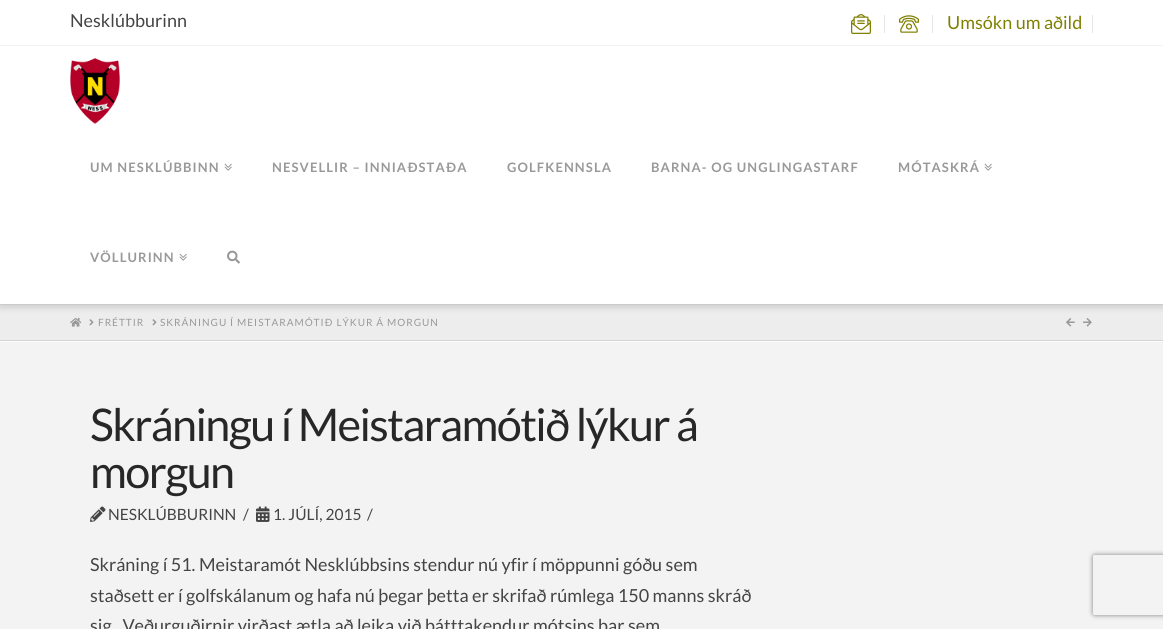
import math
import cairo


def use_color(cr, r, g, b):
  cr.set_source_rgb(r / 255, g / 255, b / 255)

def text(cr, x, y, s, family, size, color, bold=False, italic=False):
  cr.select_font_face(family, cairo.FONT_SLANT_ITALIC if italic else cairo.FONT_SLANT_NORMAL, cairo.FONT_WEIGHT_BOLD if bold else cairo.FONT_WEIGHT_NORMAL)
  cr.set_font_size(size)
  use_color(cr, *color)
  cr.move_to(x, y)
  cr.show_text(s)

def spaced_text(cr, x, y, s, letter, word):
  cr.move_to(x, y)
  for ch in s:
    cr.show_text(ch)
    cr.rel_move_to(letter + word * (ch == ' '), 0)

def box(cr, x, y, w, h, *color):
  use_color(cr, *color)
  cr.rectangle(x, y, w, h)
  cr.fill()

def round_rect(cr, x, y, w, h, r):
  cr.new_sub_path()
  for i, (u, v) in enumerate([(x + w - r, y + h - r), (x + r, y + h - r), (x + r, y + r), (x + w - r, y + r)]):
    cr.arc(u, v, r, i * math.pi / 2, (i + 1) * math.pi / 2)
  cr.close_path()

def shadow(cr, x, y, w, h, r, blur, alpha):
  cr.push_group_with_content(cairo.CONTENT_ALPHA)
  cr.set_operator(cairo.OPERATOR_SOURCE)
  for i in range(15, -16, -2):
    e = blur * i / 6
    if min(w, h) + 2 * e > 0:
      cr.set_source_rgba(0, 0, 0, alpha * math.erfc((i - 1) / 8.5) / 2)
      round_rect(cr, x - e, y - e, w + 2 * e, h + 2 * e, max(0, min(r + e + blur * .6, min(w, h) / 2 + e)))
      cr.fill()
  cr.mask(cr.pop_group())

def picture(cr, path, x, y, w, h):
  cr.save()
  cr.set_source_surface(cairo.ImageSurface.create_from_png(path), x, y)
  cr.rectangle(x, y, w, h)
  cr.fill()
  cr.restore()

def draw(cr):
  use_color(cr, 243, 243, 243)
  cr.paint()
  box(cr, 0, 305, 1163, 35, 237, 237, 237)
  picture(cr, "img_06.png", 70, 317, 12, 10)
  use_color(cr, 0, 0, 0)
  shadow(cr, 0, 49, 1163, 259, 0, 3, 0.13)
  box(cr, 0, 0, 1163, 45, 255, 255, 255)
  box(cr, 0, 45, 1163, 1, 242, 242, 242)
  picture(cr, "img_01.png", 851, 14, 20, 20)
  box(cr, 884, 15, 1, 18, 229, 229, 229)
  picture(cr, "img_02.png", 899, 15, 20, 18)
  box(cr, 932, 15, 1, 18, 229, 229, 229)
  box(cr, 1092, 15, 1, 18, 229, 229, 229)
  box(cr, 0, 46, 1163, 258, 255, 255, 255)
  box(cr, 0, 304, 1163, 1, 204, 204, 204)
  picture(cr, "img_03.png", 70, 58, 50, 66)
  picture(cr, "img_04.png", 224, 163, 8, 8)
  picture(cr, "img_04.png", 984, 163, 8, 8)
  picture(cr, "img_04.png", 179, 253, 8, 8)
  picture(cr, "img_05.png", 227, 250, 13, 14)
  box(cr, 0, 341, 1163, 1, 252, 252, 252)
  box(cr, 0, 340, 1163, 1, 213, 213, 213)
  picture(cr, "img_07.png", 89, 319, 5, 7)
  picture(cr, "img_07.png", 152, 319, 5, 7)
  picture(cr, "img_08.png", 1066, 318, 9, 9)
  picture(cr, "img_09.png", 1083, 318, 9, 9)
  picture(cr, "img_10.png", 90, 506, 16, 16)
  picture(cr, "img_11.png", 256, 506, 14, 16)
  cr.save()
  cr.set_fill_rule(cairo.FILL_RULE_EVEN_ODD)
  cr.new_path()
  cr.move_to(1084, 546)
  cr.line_to(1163, 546)
  cr.line_to(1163, 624)
  cr.line_to(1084, 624)
  cr.close_path()
  cr.move_to(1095, 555)
  cr.line_to(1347, 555)
  cr.curve_to(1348, 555, 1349, 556, 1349, 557)
  cr.line_to(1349, 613)
  cr.curve_to(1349, 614, 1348, 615, 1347, 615)
  cr.line_to(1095, 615)
  cr.curve_to(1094, 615, 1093, 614, 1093, 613)
  cr.line_to(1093, 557)
  cr.curve_to(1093, 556, 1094, 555, 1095, 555)
  cr.close_path()
  cr.clip()
  use_color(cr, 128, 128, 128)
  shadow(cr, 1093, 555, 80, 60, 2, 2.5, 1)
  cr.restore()
  text(cr, 70, 27, "Nesklúbburinn", "Lato", 18, (68, 68, 68))
  text(cr, 947, 29, "Umsókn um aðild", "Lato", 18, (128, 128, 0))
  cr.select_font_face("Lato", cairo.FONT_SLANT_NORMAL, cairo.FONT_WEIGHT_BOLD)
  cr.set_font_size(13)
  use_color(cr, 153, 153, 153)
  spaced_text(cr, 90, 172, "UM NESKLÚBBINN", 1.1, 0)
  spaced_text(cr, 272, 172, "NESVELLIR – INNIAÐSTAÐA", 1.1, 0)
  spaced_text(cr, 507, 172, "GOLFKENNSLA", 1.1, 0)
  spaced_text(cr, 651, 172, "BARNA- OG UNGLINGASTARF", 1.1, 0)
  spaced_text(cr, 898, 172, "MÓTASKRÁ", 1.1, 0)
  spaced_text(cr, 90, 262, "VÖLLURINN", 1.1, 0)
  cr.select_font_face("Lato")
  cr.set_font_size(10)
  spaced_text(cr, 98, 326, "FRÉTTIR", 1, 0)
  spaced_text(cr, 160, 326, "SKRÁNINGU Í MEISTARAMÓTIÐ LÝKUR Á MORGUN", 1, 0)
  cr.set_font_size(45)
  use_color(cr, 39, 39, 39)
  spaced_text(cr, 90, 441, "Skráningu í Meistaramótið lýkur á", -1.6, 0)
  spaced_text(cr, 90, 488, "morgun", -1.6, 0)
  text(cr, 108, 520, "NESKLÚBBURINN", "Lato", 15.5, (68, 68, 68))
  text(cr, 243, 520, "/", "Lato", 15.5, (68, 68, 68))
  text(cr, 273, 520, "1. JÚLÍ, 2015", "Lato", 15.5, (68, 68, 68))
  text(cr, 367, 520, "/", "Lato", 15.5, (68, 68, 68))
  text(cr, 90, 571, "Skráning í 51. Meistaramót Nesklúbbsins stendur nú yfir í möppunni góðu sem", "Lato", 18, (68, 68, 68))
  text(cr, 90, 602, "staðsett er í golfskálanum og hafa nú þegar þetta er skrifað rúmlega 150 manns skráð", "Lato", 18, (68, 68, 68))
  text(cr, 90, 632, "sig.  Veðurguðirnir virðast ætla að leika við þátttakendur mótsins þar sem", "Lato", 18, (68, 68, 68))


surface = cairo.ImageSurface(cairo.FORMAT_RGB24, 1163, 629)
cr = cairo.Context(surface)
options = cairo.FontOptions()
options.set_hint_metrics(cairo.HINT_METRICS_OFF)
options.set_hint_style(cairo.HINT_STYLE_NONE)
cr.set_font_options(options)
cr.set_miter_limit(4)
draw(cr)
surface.write_to_png("out.png")
